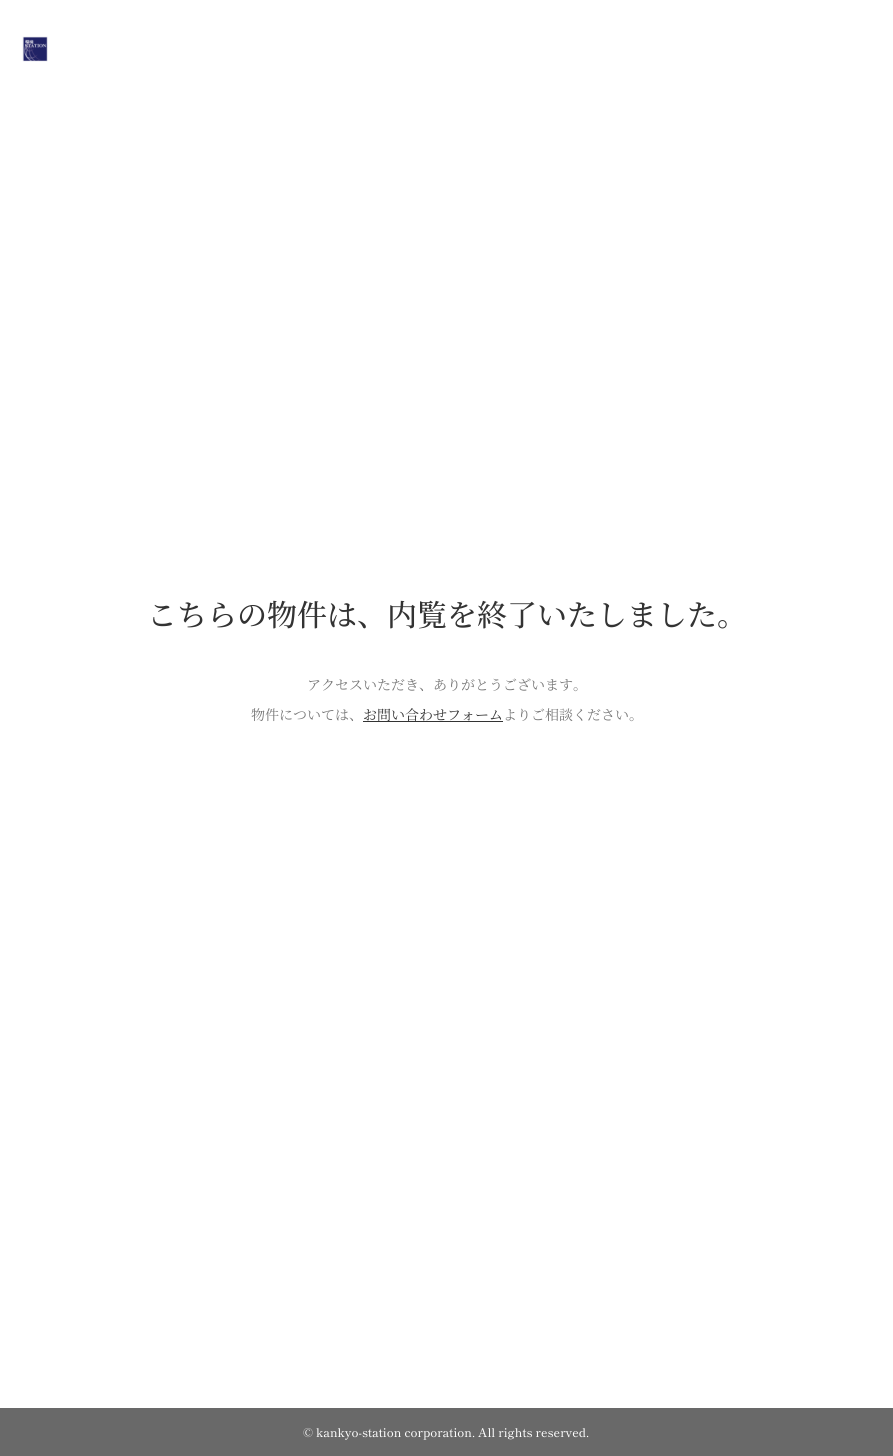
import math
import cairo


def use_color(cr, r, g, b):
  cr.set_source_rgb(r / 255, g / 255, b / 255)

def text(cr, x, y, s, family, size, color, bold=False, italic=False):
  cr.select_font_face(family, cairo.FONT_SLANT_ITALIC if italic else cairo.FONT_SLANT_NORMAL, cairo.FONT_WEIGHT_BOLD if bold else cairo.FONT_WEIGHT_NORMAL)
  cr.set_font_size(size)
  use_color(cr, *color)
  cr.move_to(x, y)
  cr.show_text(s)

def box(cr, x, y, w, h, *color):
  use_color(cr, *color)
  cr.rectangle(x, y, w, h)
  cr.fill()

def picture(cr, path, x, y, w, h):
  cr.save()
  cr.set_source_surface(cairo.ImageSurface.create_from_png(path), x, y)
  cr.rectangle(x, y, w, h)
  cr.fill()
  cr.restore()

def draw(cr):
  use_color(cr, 255, 255, 255)
  cr.paint()
  picture(cr, "img_01.png", 22, 36, 26, 26)
  box(cr, 363, 721, 140, 1, 51, 51, 51)
  box(cr, 0, 1408, 893, 48, 105, 105, 105)
  text(cr, 147, 626, "こちらの物件は、内覧を終了いたしました。", "Noto Serif JP Medium", 30, (51, 51, 51))
  text(cr, 307, 690, "アクセスいただき、ありがとうございます。", "Noto Serif JP", 14, (119, 119, 119))
  text(cr, 251, 720, "物件については、", "Noto Serif JP", 14, (119, 119, 119))
  text(cr, 363, 720, "お問い合わせフォーム", "Noto Serif JP", 14, (51, 51, 51))
  text(cr, 503, 720, "よりご相談ください。", "Noto Serif JP", 14, (119, 119, 119))
  text(cr, 303, 1437, "© kankyo-station corporation. All rights reserved.", "Shippori Mincho Medium", 12, (255, 255, 255))


surface = cairo.ImageSurface(cairo.FORMAT_RGB24, 893, 1456)
cr = cairo.Context(surface)
options = cairo.FontOptions()
options.set_hint_metrics(cairo.HINT_METRICS_OFF)
options.set_hint_style(cairo.HINT_STYLE_NONE)
cr.set_font_options(options)
cr.set_miter_limit(4)
draw(cr)
surface.write_to_png("out.png")
